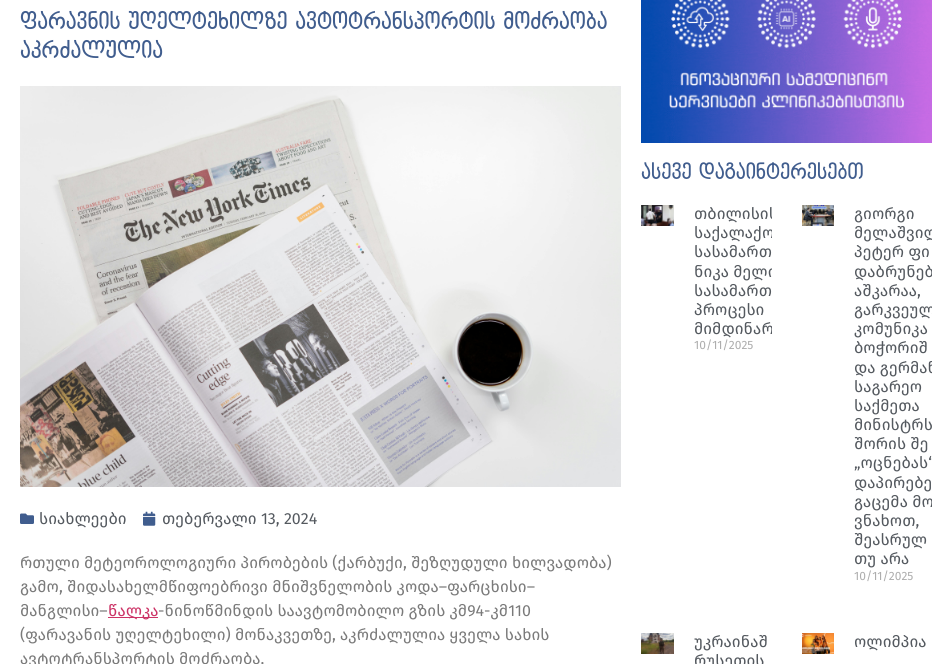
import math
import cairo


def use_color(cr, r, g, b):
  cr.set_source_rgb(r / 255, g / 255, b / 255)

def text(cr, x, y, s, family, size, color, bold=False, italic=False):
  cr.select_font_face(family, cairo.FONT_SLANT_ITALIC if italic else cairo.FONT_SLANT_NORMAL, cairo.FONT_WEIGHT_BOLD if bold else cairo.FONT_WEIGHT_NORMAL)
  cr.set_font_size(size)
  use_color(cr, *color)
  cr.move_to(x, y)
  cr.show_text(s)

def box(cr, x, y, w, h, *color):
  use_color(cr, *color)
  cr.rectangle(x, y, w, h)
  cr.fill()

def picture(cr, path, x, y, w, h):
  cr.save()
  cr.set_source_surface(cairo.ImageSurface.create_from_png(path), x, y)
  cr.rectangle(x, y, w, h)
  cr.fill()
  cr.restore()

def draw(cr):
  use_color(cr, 255, 255, 255)
  cr.paint()
  picture(cr, "img_01.png", 20, 86, 601, 401)
  picture(cr, "img_02.png", 20, 513, 14, 11)
  picture(cr, "img_03.png", 143, 511, 13, 15)
  box(cr, 108, 617, 50, 1, 204, 51, 102)
  picture(cr, "img_04.png", 641, 0, 291, 143)
  picture(cr, "img_05.png", 641, 205, 33, 21)
  picture(cr, "img_06.png", 802, 205, 32, 21)
  picture(cr, "img_07.png", 641, 633, 33, 21)
  picture(cr, "img_08.png", 802, 633, 32, 21)
  text(cr, 20, 29, "ფარავნის უღელტეხილზე ავტოტრანსპორტის მოძრაობა", "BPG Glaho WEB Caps", 22.4, (64, 93, 142))
  text(cr, 20, 58, "აკრძალულია", "BPG Glaho WEB Caps", 22.4, (64, 93, 142))
  text(cr, 39, 524, "სიახლეები", "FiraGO", 16, (84, 89, 95))
  text(cr, 162, 524, "თებერვალი 13, 2024", "FiraGO", 16, (84, 89, 95))
  text(cr, 20, 568, "რთული მეტეოროლოგიური პირობების (ქარბუქი, შეზღუდული ხილვადობა)", "FiraGO", 16, (122, 122, 122))
  text(cr, 20, 592, "გამო, შიდასახელმწიფოებრივი მნიშვნელობის კოდა–ფარცხისი–", "FiraGO", 16, (122, 122, 122))
  text(cr, 20, 616, "მანგლისი–", "FiraGO", 16, (122, 122, 122))
  text(cr, 108, 616, "წალკა", "FiraGO", 16, (204, 51, 102))
  text(cr, 158, 616, "-ნინოწმინდის საავტომობილო გზის კმ94-კმ110", "FiraGO", 16, (122, 122, 122))
  text(cr, 20, 640, "(ფარავანის უღელტეხილი) მონაკვეთზე, აკრძალულია ყველა სახის", "FiraGO", 16, (122, 122, 122))
  text(cr, 20, 664, "ავტოტრანსპორტის მოძრაობა.", "FiraGO", 16, (122, 122, 122))
  text(cr, 641, 179, "ასევე დაგაინტერესებთ", "BPG Glaho WEB Caps", 20.75, (64, 93, 142))
  cr.save()
  cr.rectangle(641, 204, 131, 393)
  cr.clip()
  text(cr, 694, 219, "თბილისის", "FiraGO", 16, (84, 89, 95))
  text(cr, 694, 238, "საქალაქო", "FiraGO", 16, (84, 89, 95))
  cr.restore()
  text(cr, 694, 257, "სასამართ", "FiraGO", 16, (84, 89, 95))
  cr.save()
  cr.rectangle(641, 204, 131, 393)
  cr.clip()
  text(cr, 694, 277, "ნიკა მელი", "FiraGO", 16, (84, 89, 95))
  cr.restore()
  text(cr, 694, 296, "სასამართ", "FiraGO", 16, (84, 89, 95))
  text(cr, 694, 315, "პროცესი", "FiraGO", 16, (84, 89, 95))
  cr.save()
  cr.rectangle(641, 204, 131, 393)
  cr.clip()
  text(cr, 694, 334, "მიმდინარ", "FiraGO", 16, (84, 89, 95))
  cr.restore()
  text(cr, 694, 349, "10/11/2025", "FiraGO", 12, (173, 173, 173))
  text(cr, 854, 219, "გიორგი", "FiraGO", 16, (84, 89, 95))
  cr.save()
  cr.rectangle(802, 204, 130, 393)
  cr.clip()
  text(cr, 854, 238, "მელაშვილ", "FiraGO", 16, (84, 89, 95))
  cr.restore()
  text(cr, 854, 257, "პეტერ ფი", "FiraGO", 16, (84, 89, 95))
  cr.save()
  cr.rectangle(802, 204, 130, 393)
  cr.clip()
  text(cr, 854, 277, "დაბრუნებ", "FiraGO", 16, (84, 89, 95))
  cr.restore()
  text(cr, 854, 296, "აშკარაა,", "FiraGO", 16, (84, 89, 95))
  cr.save()
  cr.rectangle(802, 204, 130, 393)
  cr.clip()
  text(cr, 854, 315, "გარკვეულ", "FiraGO", 16, (84, 89, 95))
  cr.restore()
  text(cr, 854, 334, "კომუნიკა", "FiraGO", 16, (84, 89, 95))
  text(cr, 854, 353, "ბოჭორიშ", "FiraGO", 16, (84, 89, 95))
  cr.save()
  cr.rectangle(802, 204, 130, 393)
  cr.clip()
  text(cr, 854, 373, "და გერმან", "FiraGO", 16, (84, 89, 95))
  cr.restore()
  text(cr, 854, 392, "საგარეო", "FiraGO", 16, (84, 89, 95))
  text(cr, 854, 411, "საქმეთა", "FiraGO", 16, (84, 89, 95))
  text(cr, 854, 430, "მინისტრს", "FiraGO", 16, (84, 89, 95))
  text(cr, 854, 449, "შორის შე", "FiraGO", 16, (84, 89, 95))
  cr.save()
  cr.rectangle(802, 204, 130, 393)
  cr.clip()
  text(cr, 854, 468, "„ოცნებას“", "FiraGO", 16, (84, 89, 95))
  cr.restore()
  text(cr, 854, 488, "დაპირებე", "FiraGO", 16, (84, 89, 95))
  cr.save()
  cr.rectangle(802, 204, 130, 393)
  cr.clip()
  text(cr, 854, 507, "გაცემა მო", "FiraGO", 16, (84, 89, 95))
  cr.restore()
  text(cr, 854, 526, "ვნახოთ,", "FiraGO", 16, (84, 89, 95))
  text(cr, 854, 545, "შეასრულ", "FiraGO", 16, (84, 89, 95))
  text(cr, 854, 564, "თუ არა", "FiraGO", 16, (84, 89, 95))
  text(cr, 854, 580, "10/11/2025", "FiraGO", 12, (173, 173, 173))
  text(cr, 694, 647, "უკრაინაშ", "FiraGO", 16, (84, 89, 95))
  text(cr, 694, 666, "რუსეთის", "FiraGO", 16, (84, 89, 95))
  text(cr, 854, 647, "ოლიმპია", "FiraGO", 16, (84, 89, 95))


surface = cairo.ImageSurface(cairo.FORMAT_RGB24, 952, 664)
cr = cairo.Context(surface)
options = cairo.FontOptions()
options.set_hint_metrics(cairo.HINT_METRICS_OFF)
options.set_hint_style(cairo.HINT_STYLE_NONE)
cr.set_font_options(options)
cr.set_miter_limit(4)
draw(cr)
surface.write_to_png("out.png")
